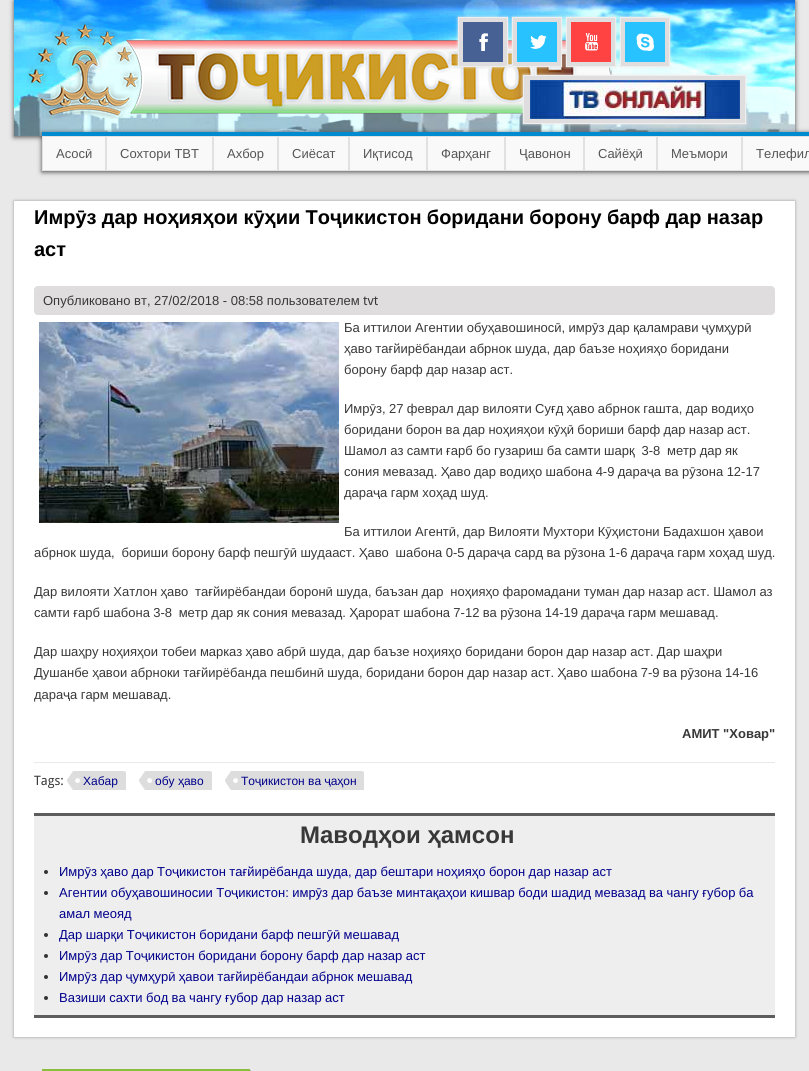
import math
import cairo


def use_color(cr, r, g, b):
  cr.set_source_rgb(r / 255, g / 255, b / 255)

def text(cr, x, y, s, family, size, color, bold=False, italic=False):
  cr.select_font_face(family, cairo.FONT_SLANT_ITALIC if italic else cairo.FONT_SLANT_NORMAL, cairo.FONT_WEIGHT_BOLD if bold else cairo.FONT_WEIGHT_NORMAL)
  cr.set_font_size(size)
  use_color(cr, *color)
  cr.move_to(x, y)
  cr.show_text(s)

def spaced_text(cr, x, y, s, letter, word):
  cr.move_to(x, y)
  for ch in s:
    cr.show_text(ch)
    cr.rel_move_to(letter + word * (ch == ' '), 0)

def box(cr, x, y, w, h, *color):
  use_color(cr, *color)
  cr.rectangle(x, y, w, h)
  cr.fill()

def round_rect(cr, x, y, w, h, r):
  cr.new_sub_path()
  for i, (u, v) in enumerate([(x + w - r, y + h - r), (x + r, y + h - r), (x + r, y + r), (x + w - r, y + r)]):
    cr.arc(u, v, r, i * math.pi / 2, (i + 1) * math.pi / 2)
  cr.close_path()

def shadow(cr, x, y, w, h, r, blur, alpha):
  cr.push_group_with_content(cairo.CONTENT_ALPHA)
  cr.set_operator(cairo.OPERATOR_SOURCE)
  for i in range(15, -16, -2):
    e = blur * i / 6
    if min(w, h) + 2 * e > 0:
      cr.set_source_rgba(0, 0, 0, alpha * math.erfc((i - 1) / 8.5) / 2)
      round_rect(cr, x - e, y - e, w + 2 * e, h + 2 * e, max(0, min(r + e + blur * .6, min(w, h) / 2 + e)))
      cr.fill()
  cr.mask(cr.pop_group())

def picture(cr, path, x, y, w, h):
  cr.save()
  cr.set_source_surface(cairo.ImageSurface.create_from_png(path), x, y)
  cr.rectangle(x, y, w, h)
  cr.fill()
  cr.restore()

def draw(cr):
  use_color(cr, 233, 233, 233)
  cr.paint()
  use_color(cr, 74, 74, 74)
  shadow(cr, 14, 1, 781, 136, 0, 2.5, 1)
  picture(cr, "img_01.png", 14, 0, 781, 136)
  picture(cr, "img_02.png", 27, 22, 585, 97)
  use_color(cr, 238, 238, 238)
  shadow(cr, 458, 17, 50, 50, 0, 1.5, 1)
  use_color(cr, 223, 221, 221)
  cr.rectangle(458.5, 17.5, 49, 49)
  cr.fill_preserve()
  use_color(cr, 238, 238, 238)
  cr.set_line_width(1)
  cr.stroke()
  use_color(cr, 238, 238, 238)
  shadow(cr, 512, 17, 50, 50, 0, 1.5, 1)
  use_color(cr, 223, 221, 221)
  cr.rectangle(512.5, 17.5, 49, 49)
  cr.fill_preserve()
  use_color(cr, 238, 238, 238)
  cr.stroke()
  use_color(cr, 238, 238, 238)
  shadow(cr, 566, 17, 50, 50, 0, 1.5, 1)
  use_color(cr, 223, 221, 221)
  cr.rectangle(566.5, 17.5, 49, 49)
  cr.fill_preserve()
  use_color(cr, 238, 238, 238)
  cr.stroke()
  use_color(cr, 238, 238, 238)
  shadow(cr, 620, 17, 50, 50, 0, 1.5, 1)
  use_color(cr, 223, 221, 221)
  cr.rectangle(620.5, 17.5, 49, 49)
  cr.fill_preserve()
  use_color(cr, 238, 238, 238)
  cr.stroke()
  picture(cr, "img_03.png", 463, 22, 40, 40)
  picture(cr, "img_04.png", 517, 22, 40, 40)
  picture(cr, "img_05.png", 571, 22, 40, 40)
  picture(cr, "img_06.png", 625, 22, 40, 40)
  use_color(cr, 238, 238, 238)
  shadow(cr, 523, 75, 223, 49, 0, 1.5, 1)
  use_color(cr, 223, 221, 221)
  cr.rectangle(523.5, 75.5, 222, 48)
  cr.fill_preserve()
  use_color(cr, 238, 238, 238)
  cr.stroke()
  picture(cr, "img_07.png", 530, 80, 210, 39)
  use_color(cr, 74, 74, 74)
  shadow(cr, 42, 133, 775, 39, 0, 2.5, 1)
  box(cr, 42, 132, 767, 4, 0, 139, 208)
  use_color(cr, 249, 249, 249)
  cr.rectangle(42.5, 136.5, 63, 34)
  cr.fill_preserve()
  use_color(cr, 225, 225, 225)
  cr.stroke()
  use_color(cr, 249, 249, 249)
  cr.rectangle(106.5, 136.5, 106, 34)
  cr.fill_preserve()
  use_color(cr, 225, 225, 225)
  cr.stroke()
  use_color(cr, 249, 249, 249)
  cr.rectangle(213.5, 136.5, 64, 34)
  cr.fill_preserve()
  use_color(cr, 225, 225, 225)
  cr.stroke()
  use_color(cr, 249, 249, 249)
  cr.rectangle(278.5, 136.5, 70, 34)
  cr.fill_preserve()
  use_color(cr, 225, 225, 225)
  cr.stroke()
  use_color(cr, 249, 249, 249)
  cr.rectangle(349.5, 136.5, 77, 34)
  cr.fill_preserve()
  use_color(cr, 225, 225, 225)
  cr.stroke()
  use_color(cr, 249, 249, 249)
  cr.rectangle(427.5, 136.5, 77, 34)
  cr.fill_preserve()
  use_color(cr, 225, 225, 225)
  cr.stroke()
  use_color(cr, 249, 249, 249)
  cr.rectangle(505.5, 136.5, 78, 34)
  cr.fill_preserve()
  use_color(cr, 225, 225, 225)
  cr.stroke()
  use_color(cr, 249, 249, 249)
  cr.rectangle(584.5, 136.5, 72, 34)
  cr.fill_preserve()
  use_color(cr, 225, 225, 225)
  cr.stroke()
  use_color(cr, 249, 249, 249)
  cr.rectangle(657.5, 136.5, 84, 34)
  cr.fill_preserve()
  use_color(cr, 225, 225, 225)
  cr.stroke()
  use_color(cr, 249, 249, 249)
  cr.rectangle(742.5, 136.5, 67, 34)
  cr.fill_preserve()
  use_color(cr, 225, 225, 225)
  cr.stroke()
  use_color(cr, 153, 153, 153)
  shadow(cr, 14, 201, 781, 836, 0, 1.5, 1)
  box(cr, 14, 201, 781, 836, 255, 255, 255)
  use_color(cr, 223, 221, 221)
  round_rect(cr, 34, 286, 741, 29, 4)
  cr.fill()
  box(cr, 34, 762, 741, 1, 233, 233, 233)
  picture(cr, "img_08.png", 39, 322, 300, 201)
  picture(cr, "img_09.png", 67, 771, 59, 19)
  picture(cr, "img_10.png", 139, 771, 73, 19)
  picture(cr, "img_11.png", 225, 771, 139, 19)
  box(cr, 34, 816, 741, 199, 238, 238, 238)
  box(cr, 34, 813, 741, 3, 93, 93, 93)
  box(cr, 34, 1015, 741, 3, 93, 93, 93)
  use_color(cr, 51, 51, 51)
  cr.arc(46, 872, 2, 0, 2 * math.pi)
  cr.fill()
  cr.arc(46, 893, 2, 0, 2 * math.pi)
  cr.fill()
  cr.arc(46, 935, 2, 0, 2 * math.pi)
  cr.fill()
  cr.arc(46, 956, 2, 0, 2 * math.pi)
  cr.fill()
  cr.arc(46, 977, 2, 0, 2 * math.pi)
  cr.fill()
  cr.arc(46, 998, 2, 0, 2 * math.pi)
  cr.fill()
  use_color(cr, 184, 184, 184)
  cr.new_path()
  cr.move_to(43, 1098)
  cr.line_to(43, 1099)
  cr.line_to(251, 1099)
  cr.line_to(251, 1070)
  cr.line_to(250, 1070)
  cr.line_to(250, 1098)
  cr.close_path()
  cr.fill()
  box(cr, 42, 1069, 208, 2, 139, 190, 58)
  text(cr, 56, 158, "Асосӣ", "Liberation Sans", 13, (85, 85, 85))
  text(cr, 120, 158, "Сохтори ТВТ", "Liberation Sans", 13, (85, 85, 85))
  text(cr, 227, 158, "Ахбор", "Liberation Sans", 13, (85, 85, 85))
  text(cr, 292, 158, "Сиёсат", "Liberation Sans", 13, (85, 85, 85))
  text(cr, 363, 158, "Иқтисод", "Liberation Sans", 13, (85, 85, 85))
  text(cr, 441, 158, "Фарҳанг", "Liberation Sans", 13, (85, 85, 85))
  text(cr, 519, 158, "Ҷавонон", "Liberation Sans", 13, (85, 85, 85))
  text(cr, 598, 158, "Сайёҳӣ", "Liberation Sans", 13, (85, 85, 85))
  text(cr, 671, 158, "Меъмори", "Liberation Sans", 13, (85, 85, 85))
  text(cr, 756, 158, "Телефил", "Liberation Sans", 13, (85, 85, 85))
  cr.select_font_face("Liberation Sans", cairo.FONT_SLANT_NORMAL, cairo.FONT_WEIGHT_BOLD)
  cr.set_font_size(20)
  use_color(cr, 0, 0, 0)
  spaced_text(cr, 34, 224, "Имрӯз дар ноҳияҳои кӯҳии Тоҷикистон боридани борону барф дар назар", 0, -0.25)
  text(cr, 34, 256, "аст", "Liberation Sans", 20, (0, 0, 0), bold=True)
  text(cr, 43, 305, "Опубликовано вт, 27/02/2018 - 08:58 пользователем", "Liberation Sans", 13, (56, 56, 56))
  text(cr, 363, 305, "tvt", "Droid Sans", 13, (56, 56, 56))
  cr.select_font_face("Liberation Sans")
  spaced_text(cr, 344, 332, "Ба иттилои Агентии обуҳавошиносӣ, имрӯз дар қаламрави ҷумҳурӣ", 0, -0.25)
  spaced_text(cr, 344, 353, "ҳаво тағйирёбандаи абрнок шуда, дар баъзе ноҳияҳо боридани", 0, -0.25)
  spaced_text(cr, 344, 374, "борону барф дар назар аст.", 0, -0.25)
  spaced_text(cr, 344, 413, "Имрӯз, 27 феврал дар вилояти Суғд ҳаво абрнок гашта, дар водиҳо", 0, -0.25)
  spaced_text(cr, 344, 434, "боридани борон ва дар ноҳияҳои кӯҳӣ бориши барф дар назар аст.", 0, -0.25)
  spaced_text(cr, 344, 455, "Шамол аз самти ғарб бо гузариш ба самти шарқ  3-8  метр дар як", 0, -0.25)
  spaced_text(cr, 344, 476, "сония мевазад. Ҳаво дар водиҳо шабона 4-9 дараҷа ва рӯзона 12-17", 0, -0.25)
  spaced_text(cr, 344, 497, "дараҷа гарм хоҳад шуд.", 0, -0.25)
  spaced_text(cr, 344, 536, "Ба иттилои Агентӣ, дар Вилояти Мухтори Кӯҳистони Бадахшон ҳавои", 0, -0.25)
  spaced_text(cr, 34, 557, "абрнок шуда,  бориши борону барф пешгӯӣ шудааст. Ҳаво  шабона 0-5 дараҷа сард ва рӯзона 1-6 дараҷа гарм хоҳад шуд.", 0, -0.25)
  spaced_text(cr, 34, 596, "Дар вилояти Хатлон ҳаво  тағйирёбандаи боронӣ шуда, баъзан дар  ноҳияҳо фаромадани туман дар назар аст. Шамол аз", 0, -0.25)
  spaced_text(cr, 34, 617, "самти ғарб шабона 3-8  метр дар як сония мевазад. Ҳарорат шабона 7-12 ва рӯзона 14-19 дараҷа гарм мешавад.", 0, -0.3)
  spaced_text(cr, 34, 656, "Дар шаҳру ноҳияҳои тобеи марказ ҳаво абрӣ шуда, дар баъзе ноҳияҳо боридани борон дар назар аст. Дар шаҳри", 0, -0.25)
  spaced_text(cr, 34, 677, "Душанбе ҳавои абрноки тағйирёбанда пешбинӣ шуда, боридани борон дар назар аст. Ҳаво шабона 7-9 ва рӯзона 14-16", 0, -0.3)
  spaced_text(cr, 34, 699, "дараҷа гарм мешавад.", 0, -0.25)
  text(cr, 682, 738, "АМИТ \"Ховар\"", "Liberation Sans", 13, (56, 56, 56), bold=True)
  text(cr, 34, 785, "Tags:", "Droid Sans", 13, (56, 56, 56))
  text(cr, 83, 785, "Хабар", "Liberation Sans", 12, (0, 0, 139))
  text(cr, 155, 785, "обу ҳаво", "Liberation Sans", 12, (0, 0, 139))
  text(cr, 241, 785, "Тоҷикистон ва ҷаҳон", "Liberation Sans", 12, (0, 0, 139))
  text(cr, 300, 843, "Маводҳои ҳамсон", "Liberation Sans", 24, (56, 56, 56), bold=True)
  cr.select_font_face("Liberation Sans")
  cr.set_font_size(13)
  use_color(cr, 0, 0, 139)
  spaced_text(cr, 59, 876, "Имрӯз ҳаво дар Тоҷикистон тағйирёбанда шуда, дар бештари ноҳияҳо борон дар назар аст", 0, -0.25)
  spaced_text(cr, 59, 897, "Агентии обуҳавошиносии Тоҷикистон: имрӯз дар баъзе минтақаҳои кишвар боди шадид мевазад ва чангу ғубор ба", 0, -0.25)
  text(cr, 59, 918, "амал меояд", "Liberation Sans", 13, (0, 0, 139))
  spaced_text(cr, 59, 939, "Дар шарқи Тоҷикистон боридани барф пешгӯӣ мешавад", 0, -0.25)
  spaced_text(cr, 59, 960, "Имрӯз дар Тоҷикистон боридани борону барф дар назар аст", 0, -0.25)
  spaced_text(cr, 59, 981, "Имрӯз дар ҷумҳурӣ ҳавои тағйирёбандаи абрнок мешавад", 0, -0.25)
  spaced_text(cr, 59, 1002, "Вазиши сахти бод ва чангу ғубор дар назар аст", 0, -0.25)


surface = cairo.ImageSurface(cairo.FORMAT_RGB24, 809, 1071)
cr = cairo.Context(surface)
options = cairo.FontOptions()
options.set_hint_metrics(cairo.HINT_METRICS_OFF)
options.set_hint_style(cairo.HINT_STYLE_NONE)
cr.set_font_options(options)
cr.set_miter_limit(4)
draw(cr)
surface.write_to_png("out.png")
